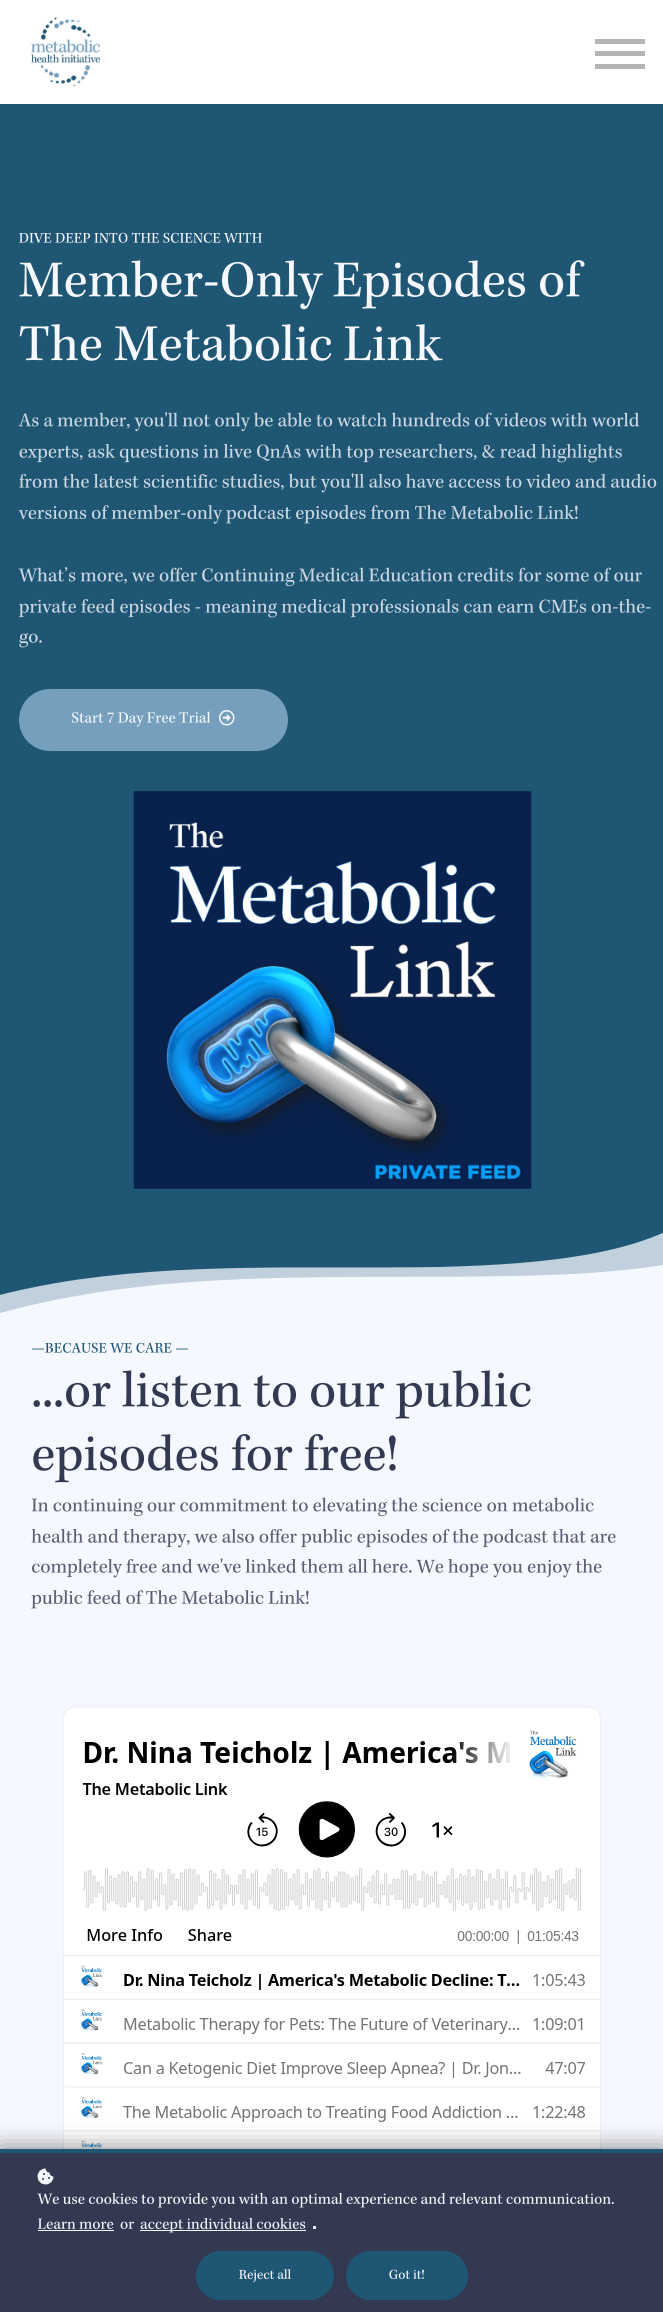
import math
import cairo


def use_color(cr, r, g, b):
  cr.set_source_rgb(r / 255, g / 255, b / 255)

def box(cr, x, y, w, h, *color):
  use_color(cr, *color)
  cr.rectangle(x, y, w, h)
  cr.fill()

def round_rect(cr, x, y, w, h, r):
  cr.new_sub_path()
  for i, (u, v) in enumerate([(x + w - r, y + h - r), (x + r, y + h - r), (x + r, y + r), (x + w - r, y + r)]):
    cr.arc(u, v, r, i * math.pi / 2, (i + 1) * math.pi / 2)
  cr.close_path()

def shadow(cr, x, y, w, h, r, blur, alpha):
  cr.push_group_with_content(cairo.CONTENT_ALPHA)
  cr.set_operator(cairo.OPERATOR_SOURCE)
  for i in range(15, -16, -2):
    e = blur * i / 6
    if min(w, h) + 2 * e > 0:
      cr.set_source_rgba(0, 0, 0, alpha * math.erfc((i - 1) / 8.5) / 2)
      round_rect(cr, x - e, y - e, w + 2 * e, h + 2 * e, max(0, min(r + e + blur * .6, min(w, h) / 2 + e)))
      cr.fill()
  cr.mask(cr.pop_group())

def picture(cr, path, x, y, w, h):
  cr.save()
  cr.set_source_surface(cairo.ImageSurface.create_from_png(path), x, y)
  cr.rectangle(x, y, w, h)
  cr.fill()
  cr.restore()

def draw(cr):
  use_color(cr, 31, 86, 115)
  cr.paint()
  box(cr, 0, 0, 663, 104, 255, 255, 255)
  picture(cr, "img_01.png", 31, 17, 69, 70)
  box(cr, 595, 64, 50, 5, 180, 180, 180)
  box(cr, 595, 39, 50, 5, 180, 180, 180)
  box(cr, 595, 51, 50, 5, 180, 180, 180)
  picture(cr, "img_02.png", 19, 232, 243, 11)
  picture(cr, "img_03.png", 19, 260, 566, 50)
  picture(cr, "img_04.png", 19, 324, 424, 37)
  picture(cr, "img_05.png", 18, 412, 622, 20)
  picture(cr, "img_06.png", 19, 444, 603, 19)
  picture(cr, "img_07.png", 19, 473, 638, 20)
  picture(cr, "img_08.png", 18, 505, 560, 19)
  picture(cr, "img_09.png", 18, 567, 624, 20)
  picture(cr, "img_10.png", 18, 598, 633, 20)
  picture(cr, "img_11.png", 19, 633, 23, 15)
  use_color(cr, 117, 159, 188)
  round_rect(cr, 19, 689, 269, 62, 31)
  cr.fill()
  picture(cr, "img_12.png", 71, 711, 140, 16)
  picture(cr, "img_13.png", 219, 710, 16, 16)
  picture(cr, "img_14.png", 133, 791, 399, 398)
  box(cr, 0, 1264, 663, 885, 246, 248, 255)
  cr.save()
  cr.rectangle(0, 1189, 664, 195)
  cr.clip()
  use_color(cr, 192, 208, 220)
  cr.new_path()
  cr.move_to(82, 1295)
  cr.curve_to(219, 1271, 368, 1279, 511, 1276)
  cr.curve_to(628, 1274, 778, 1263, 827, 1186)
  cr.line_to(-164, 1186)
  cr.line_to(-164, 1387)
  cr.curve_to(-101, 1342, -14, 1311, 82, 1295)
  cr.close_path()
  cr.fill()
  use_color(cr, 31, 86, 115)
  cr.new_path()
  cr.move_to(56, 1283)
  cr.curve_to(179, 1262, 312, 1269, 440, 1267)
  cr.curve_to(544, 1264, 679, 1255, 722, 1186)
  cr.line_to(-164, 1186)
  cr.line_to(-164, 1366)
  cr.curve_to(-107, 1325, -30, 1298, 56, 1283)
  cr.close_path()
  cr.fill()
  cr.restore()
  picture(cr, "img_15.png", 32, 1342, 156, 11)
  picture(cr, "img_16.png", 33, 1370, 498, 49)
  picture(cr, "img_17.png", 33, 1434, 363, 49)
  picture(cr, "img_18.png", 31, 1497, 563, 20)
  picture(cr, "img_19.png", 31, 1528, 585, 20)
  picture(cr, "img_20.png", 32, 1558, 570, 20)
  picture(cr, "img_21.png", 31, 1590, 278, 19)
  picture(cr, "img_22.png", 62, 1706, 539, 443)
  use_color(cr, 0, 0, 0)
  shadow(cr, 0, 2149, 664, 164, 0, 12.5, 0.5)
  box(cr, 0, 2153, 663, 159, 50, 57, 81)
  box(cr, 0, 2149, 663, 4, 31, 86, 115)
  picture(cr, "img_23.png", 37, 2168, 17, 17)
  picture(cr, "img_24.png", 37, 2192, 577, 16)
  picture(cr, "img_25.png", 37, 2218, 77, 11)
  box(cr, 38, 2230, 76, 1, 246, 248, 255)
  picture(cr, "img_26.png", 120, 2221, 14, 8)
  box(cr, 140, 2230, 166, 1, 246, 248, 255)
  picture(cr, "img_27.png", 140, 2217, 166, 16)
  box(cr, 313, 2226, 3, 3, 230, 233, 241)
  use_color(cr, 31, 86, 115)
  round_rect(cr, 196, 2251, 138, 49, 24.5)
  cr.fill()
  picture(cr, "img_28.png", 239, 2269, 52, 14)
  round_rect(cr, 346, 2251, 122, 49, 24.5)
  cr.fill()
  picture(cr, "img_29.png", 389, 2269, 35, 10)


surface = cairo.ImageSurface(cairo.FORMAT_RGB24, 663, 2312)
cr = cairo.Context(surface)
options = cairo.FontOptions()
options.set_hint_metrics(cairo.HINT_METRICS_OFF)
options.set_hint_style(cairo.HINT_STYLE_NONE)
cr.set_font_options(options)
cr.set_miter_limit(4)
draw(cr)
surface.write_to_png("out.png")
